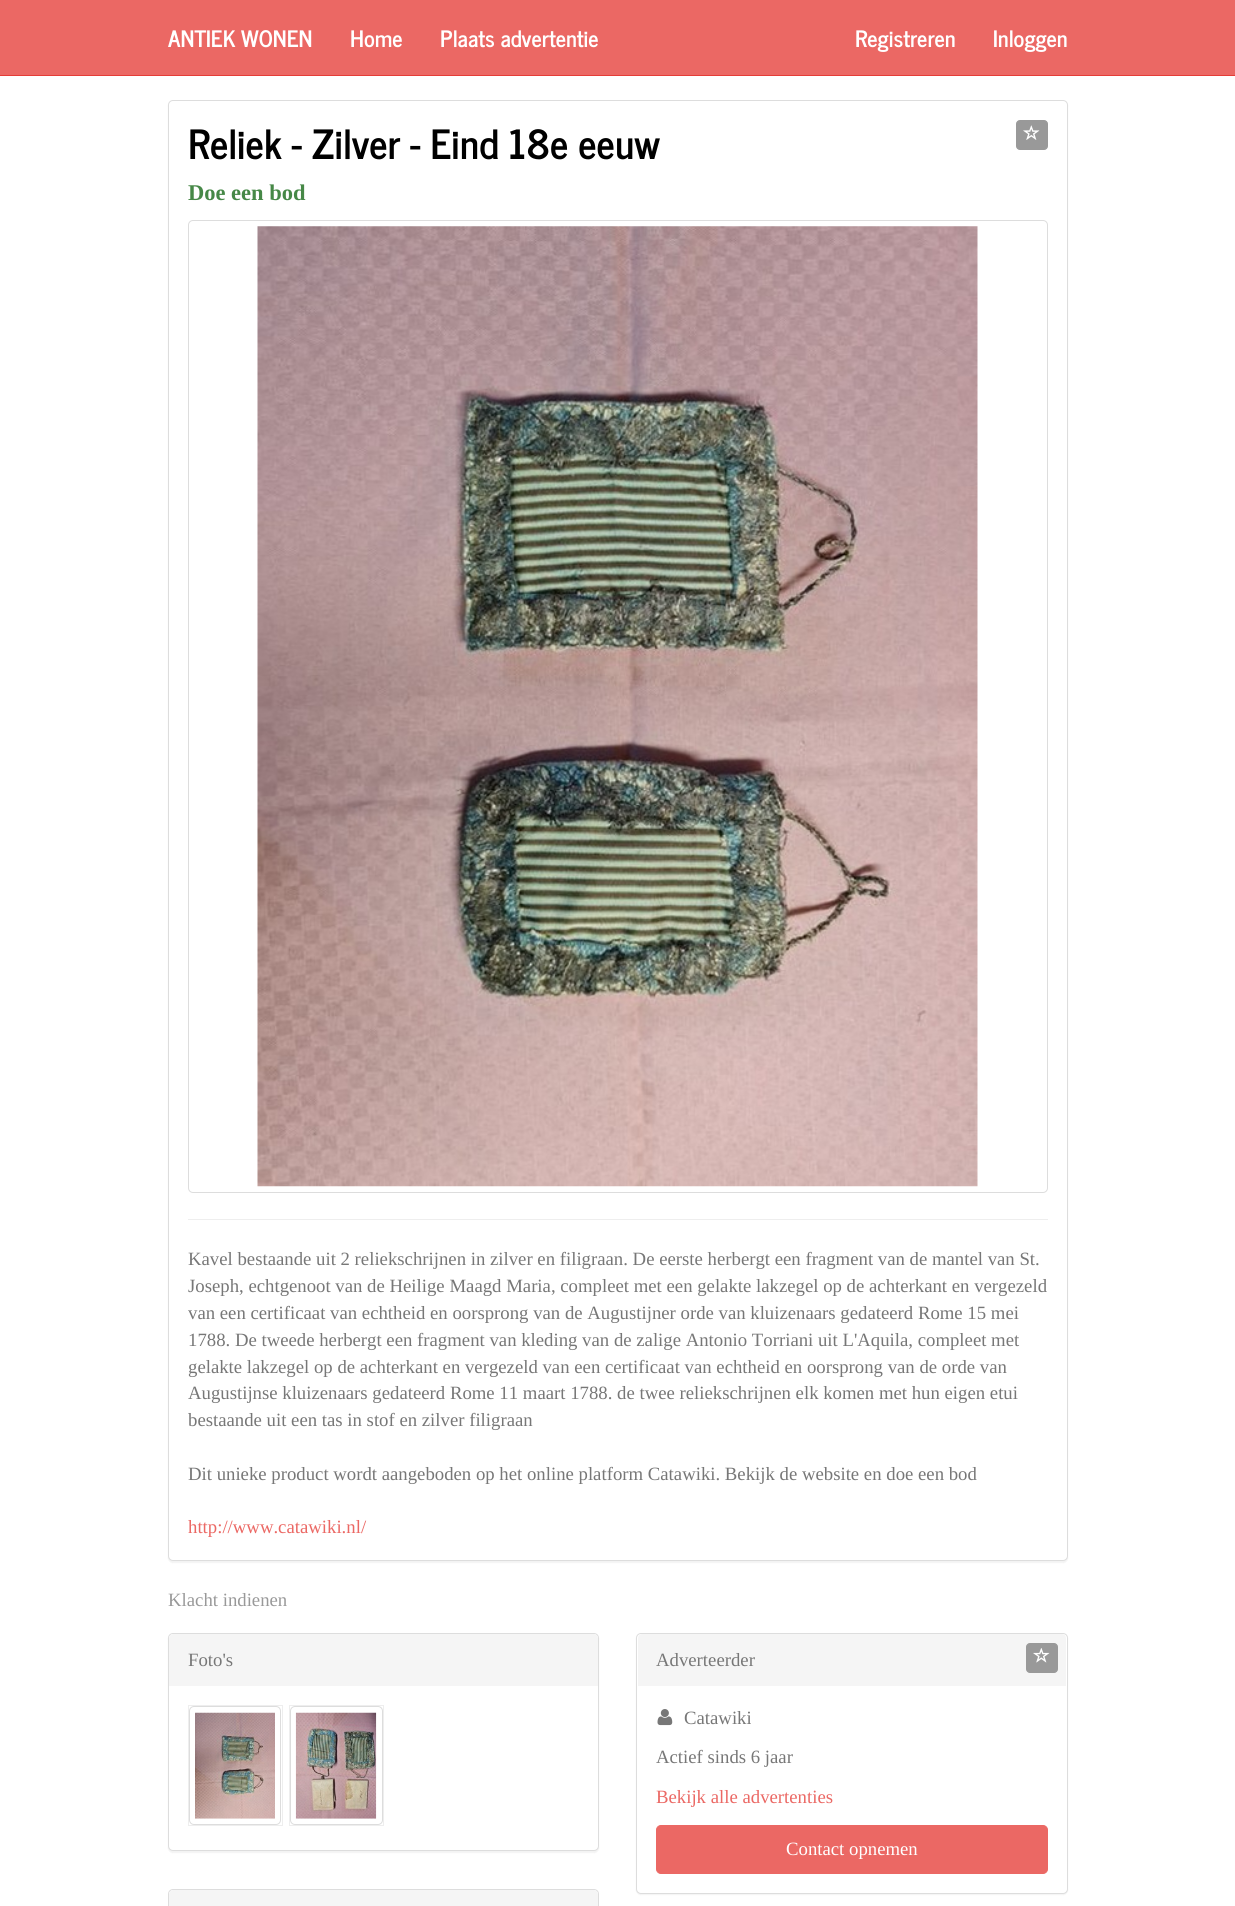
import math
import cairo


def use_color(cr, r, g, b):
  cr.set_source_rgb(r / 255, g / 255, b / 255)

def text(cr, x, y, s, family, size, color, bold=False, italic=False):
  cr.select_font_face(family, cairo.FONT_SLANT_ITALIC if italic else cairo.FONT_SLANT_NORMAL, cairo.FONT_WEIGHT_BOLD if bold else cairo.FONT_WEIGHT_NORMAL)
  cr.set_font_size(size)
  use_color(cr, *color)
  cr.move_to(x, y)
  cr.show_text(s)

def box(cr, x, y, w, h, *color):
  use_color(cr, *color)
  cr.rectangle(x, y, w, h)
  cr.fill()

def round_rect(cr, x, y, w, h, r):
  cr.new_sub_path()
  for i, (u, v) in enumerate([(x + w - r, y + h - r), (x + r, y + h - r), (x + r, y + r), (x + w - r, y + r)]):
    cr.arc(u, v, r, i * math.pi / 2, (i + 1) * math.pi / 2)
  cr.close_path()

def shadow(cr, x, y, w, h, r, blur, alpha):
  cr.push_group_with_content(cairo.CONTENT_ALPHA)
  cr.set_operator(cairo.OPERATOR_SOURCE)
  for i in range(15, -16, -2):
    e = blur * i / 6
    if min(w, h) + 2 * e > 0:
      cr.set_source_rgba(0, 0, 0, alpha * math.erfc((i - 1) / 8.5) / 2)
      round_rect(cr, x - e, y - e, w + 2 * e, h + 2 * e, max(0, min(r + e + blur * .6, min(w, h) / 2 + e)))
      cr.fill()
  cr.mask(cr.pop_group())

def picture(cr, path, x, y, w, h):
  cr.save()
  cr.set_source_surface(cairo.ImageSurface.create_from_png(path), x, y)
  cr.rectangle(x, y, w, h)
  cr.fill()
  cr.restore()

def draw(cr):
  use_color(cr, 255, 255, 255)
  cr.paint()
  box(cr, 0, 0, 1235, 75, 235, 104, 100)
  box(cr, 0, 75, 1235, 1, 229, 60, 55)
  use_color(cr, 0, 0, 0)
  shadow(cr, 168, 101, 900, 1462, 5, 0.5, 0.05)
  use_color(cr, 255, 255, 255)
  round_rect(cr, 168.5, 100.5, 899, 1460, 4.5)
  cr.fill_preserve()
  use_color(cr, 221, 221, 221)
  cr.set_line_width(1)
  cr.stroke()
  use_color(cr, 153, 153, 153)
  round_rect(cr, 1016.5, 120.5, 31, 29, 3.5)
  cr.fill_preserve()
  cr.stroke()
  picture(cr, "img_01.png", 1023, 125, 17, 15)
  round_rect(cr, 188.5, 220.5, 859, 972, 4.5)
  use_color(cr, 221, 221, 221)
  cr.stroke()
  picture(cr, "img_02.png", 257, 226, 721, 961)
  box(cr, 188, 1219, 860, 1, 238, 238, 238)
  use_color(cr, 0, 0, 0)
  shadow(cr, 168, 1634, 431, 219, 5, 0.5, 0.05)
  use_color(cr, 255, 255, 255)
  round_rect(cr, 168.5, 1633.5, 430, 217, 4.5)
  cr.fill_preserve()
  use_color(cr, 221, 221, 221)
  cr.stroke()
  use_color(cr, 245, 245, 245)
  cr.new_path()
  cr.move_to(173, 1634)
  cr.line_to(594, 1634)
  cr.curve_to(596, 1634, 598, 1636, 598, 1638)
  cr.line_to(598, 1686)
  cr.line_to(169, 1686)
  cr.line_to(169, 1638)
  cr.curve_to(169, 1636, 171, 1634, 173, 1634)
  cr.close_path()
  cr.fill()
  cr.rectangle(188.5, 1705.5, 94, 120)
  use_color(cr, 238, 238, 238)
  cr.stroke()
  round_rect(cr, 189.5, 1706.5, 91, 118, 4.5)
  use_color(cr, 221, 221, 221)
  cr.stroke()
  picture(cr, "img_03.png", 195, 1712, 80, 107)
  cr.rectangle(289.5, 1705.5, 94, 120)
  use_color(cr, 238, 238, 238)
  cr.stroke()
  round_rect(cr, 290.5, 1706.5, 92, 118, 4.5)
  use_color(cr, 221, 221, 221)
  cr.stroke()
  picture(cr, "img_04.png", 295, 1712, 82, 107)
  round_rect(cr, 168.5, 1889.5, 430, 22, 4.5)
  cr.stroke()
  use_color(cr, 245, 245, 245)
  cr.new_path()
  cr.move_to(173, 1890)
  cr.line_to(594, 1890)
  cr.curve_to(596, 1890, 598, 1892, 598, 1894)
  cr.line_to(598, 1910)
  cr.line_to(169, 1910)
  cr.line_to(169, 1894)
  cr.curve_to(169, 1892, 171, 1890, 173, 1890)
  cr.close_path()
  cr.fill()
  use_color(cr, 0, 0, 0)
  shadow(cr, 636, 1634, 432, 261, 5, 0.5, 0.05)
  use_color(cr, 255, 255, 255)
  round_rect(cr, 636.5, 1633.5, 431, 260, 4.5)
  cr.fill_preserve()
  use_color(cr, 221, 221, 221)
  cr.stroke()
  use_color(cr, 245, 245, 245)
  cr.new_path()
  cr.move_to(642, 1634)
  cr.line_to(1062, 1634)
  cr.curve_to(1064, 1634, 1066, 1636, 1066, 1638)
  cr.line_to(1066, 1686)
  cr.line_to(638, 1686)
  cr.line_to(638, 1638)
  cr.curve_to(638, 1636, 640, 1634, 642, 1634)
  cr.close_path()
  cr.fill()
  use_color(cr, 153, 153, 153)
  round_rect(cr, 1026.5, 1643.5, 31, 29, 3.5)
  cr.fill_preserve()
  cr.stroke()
  picture(cr, "img_05.png", 1033, 1648, 17, 15)
  picture(cr, "img_06.png", 657, 1709, 16, 17)
  use_color(cr, 235, 104, 100)
  round_rect(cr, 656.5, 1825.5, 391, 48, 4.5)
  cr.fill_preserve()
  cr.stroke()
  text(cr, 168, 47, "ANTIEK WONEN", "News Cycle", 22.5, (255, 255, 255), bold=True)
  text(cr, 350, 47, "Home", "News Cycle", 22.5, (255, 255, 255), bold=True)
  text(cr, 440, 47, "Plaats advertentie", "News Cycle", 22.5, (255, 255, 255), bold=True)
  text(cr, 855, 47, "Registreren", "News Cycle", 22.5, (255, 255, 255), bold=True)
  text(cr, 993, 47, "Inloggen", "News Cycle", 22.5, (255, 255, 255), bold=True)
  text(cr, 188, 159, "Reliek - Zilver - Eind 18e eeuw", "News Cycle", 40, (0, 0, 0), bold=True)
  text(cr, 188, 200, "Doe een bod", "Liberation Serif", 22.5, (70, 136, 71), bold=True)
  text(cr, 188, 1265, "Kavel bestaande uit 2 reliekschrijnen in zilver en filigraan. De eerste herbergt een fragment van de mantel van St.", "Liberation Serif", 18.75, (119, 119, 119))
  text(cr, 188, 1292, "Joseph, echtgenoot van de Heilige Maagd Maria, compleet met een gelakte lakzegel op de achterkant en vergezeld", "Liberation Serif", 18.75, (119, 119, 119))
  text(cr, 188, 1319, "van een certificaat van echtheid en oorsprong van de Augustijner orde van kluizenaars gedateerd Rome 15 mei", "Liberation Serif", 18.75, (119, 119, 119))
  text(cr, 188, 1346, "1788. De tweede herbergt een fragment van kleding van de zalige Antonio Torriani uit L'Aquila, compleet met", "Liberation Serif", 18.75, (119, 119, 119))
  text(cr, 188, 1373, "gelakte lakzegel op de achterkant en vergezeld van een certificaat van echtheid en oorsprong van de orde van", "Liberation Serif", 18.75, (119, 119, 119))
  text(cr, 188, 1399, "Augustijnse kluizenaars gedateerd Rome 11 maart 1788. de twee reliekschrijnen elk komen met hun eigen etui", "Liberation Serif", 18.75, (119, 119, 119))
  text(cr, 188, 1426, "bestaande uit een tas in stof en zilver filigraan", "Liberation Serif", 18.75, (119, 119, 119))
  text(cr, 188, 1480, "Dit unieke product wordt aangeboden op het online platform Catawiki. Bekijk de website en doe een bod", "Liberation Serif", 18.75, (119, 119, 119))
  text(cr, 188, 1533, "http://www.catawiki.nl/", "Liberation Serif", 18.75, (235, 104, 100))
  text(cr, 168, 1606, "Klacht indienen", "Liberation Serif", 18.75, (153, 153, 153))
  text(cr, 188, 1666, "Foto's", "Liberation Serif", 18.75, (119, 119, 119))
  text(cr, 656, 1666, "Adverteerder", "Liberation Serif", 18.75, (119, 119, 119))
  text(cr, 684, 1724, "Catawiki", "Liberation Serif", 18.75, (119, 119, 119))
  text(cr, 656, 1763, "Actief sinds 6 jaar", "Liberation Serif", 18.75, (119, 119, 119))
  text(cr, 656, 1803, "Bekijk alle advertenties", "Liberation Serif", 18.75, (235, 104, 100))
  text(cr, 786, 1855, "Contact opnemen", "Liberation Serif", 18.75, (255, 255, 255))


surface = cairo.ImageSurface(cairo.FORMAT_RGB24, 1235, 1906)
cr = cairo.Context(surface)
options = cairo.FontOptions()
options.set_hint_metrics(cairo.HINT_METRICS_OFF)
options.set_hint_style(cairo.HINT_STYLE_NONE)
cr.set_font_options(options)
cr.set_miter_limit(4)
draw(cr)
surface.write_to_png("out.png")
